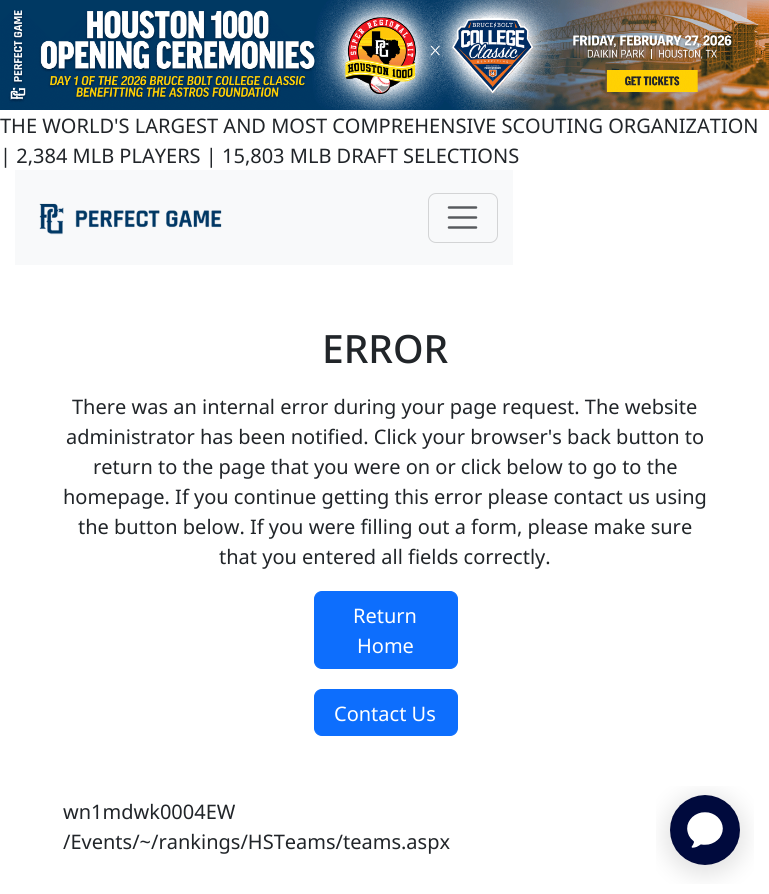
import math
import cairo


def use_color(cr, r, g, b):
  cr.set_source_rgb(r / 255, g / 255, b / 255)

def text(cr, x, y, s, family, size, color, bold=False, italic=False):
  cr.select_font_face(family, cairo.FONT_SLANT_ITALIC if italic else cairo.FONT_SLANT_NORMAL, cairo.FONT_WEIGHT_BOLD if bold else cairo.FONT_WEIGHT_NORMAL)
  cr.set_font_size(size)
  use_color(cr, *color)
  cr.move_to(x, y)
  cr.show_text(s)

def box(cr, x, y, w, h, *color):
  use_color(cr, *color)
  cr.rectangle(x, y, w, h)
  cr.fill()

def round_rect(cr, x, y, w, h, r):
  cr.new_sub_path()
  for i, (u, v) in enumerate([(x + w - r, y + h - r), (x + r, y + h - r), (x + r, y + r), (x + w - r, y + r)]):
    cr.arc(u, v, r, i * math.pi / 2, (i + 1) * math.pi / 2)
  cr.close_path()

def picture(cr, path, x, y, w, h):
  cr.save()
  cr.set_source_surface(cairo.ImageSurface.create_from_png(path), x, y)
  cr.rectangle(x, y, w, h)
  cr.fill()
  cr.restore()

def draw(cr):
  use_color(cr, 255, 255, 255)
  cr.paint()
  picture(cr, "img_01.png", 0, 0, 769, 110)
  box(cr, 15, 170, 498, 95, 248, 249, 250)
  picture(cr, "img_02.png", 39, 203, 183, 32)
  round_rect(cr, 428.5, 193.5, 69, 49, 7.5)
  use_color(cr, 211, 212, 213)
  cr.set_line_width(1)
  cr.stroke()
  cr.new_path()
  cr.move_to(449, 207.5)
  cr.line_to(476, 207.5)
  cr.move_to(449, 217.5)
  cr.line_to(476, 217.5)
  cr.move_to(449, 227.5)
  cr.line_to(476, 227.5)
  use_color(cr, 87, 90, 93)
  cr.set_line_width(2.5)
  cr.set_line_cap(cairo.LINE_CAP_ROUND)
  cr.stroke()
  use_color(cr, 13, 110, 253)
  round_rect(cr, 314.5, 591.5, 143, 77, 7.5)
  cr.fill_preserve()
  cr.set_line_width(1)
  cr.set_line_cap(cairo.LINE_CAP_BUTT)
  cr.stroke()
  round_rect(cr, 314.5, 689.5, 143, 46, 7.5)
  cr.fill_preserve()
  cr.stroke()
  picture(cr, "img_03.png", 656, 786, 98, 98)
  text(cr, 0, 133, "THE WORLD'S LARGEST AND MOST COMPREHENSIVE SCOUTING ORGANIZATION", "Noto Sans", 20, (33, 37, 41))
  text(cr, 0, 163, "| 2,384 MLB PLAYERS | 15,803 MLB DRAFT SELECTIONS", "Noto Sans", 20, (33, 37, 41))
  text(cr, 322, 363, "ERROR", "Noto Sans Medium", 39, (33, 37, 41))
  text(cr, 72, 414, "There was an internal error during your page request. The website", "Noto Sans", 20, (33, 37, 41))
  text(cr, 66, 444, "administrator has been notified. Click your browser's back button to", "Noto Sans", 20, (33, 37, 41))
  text(cr, 93, 474, "return to the page that you were on or click below to go to the", "Noto Sans", 20, (33, 37, 41))
  text(cr, 63, 504, "homepage. If you continue getting this error please contact us using", "Noto Sans", 20, (33, 37, 41))
  text(cr, 78, 534, "the button below. If you were filling out a form, please make sure", "Noto Sans", 20, (33, 37, 41))
  text(cr, 219, 564, "that you entered all fields correctly.", "Noto Sans", 20, (33, 37, 41))
  text(cr, 353, 623, "Return", "Noto Sans", 20, (255, 255, 255))
  text(cr, 357, 653, "Home", "Noto Sans", 20, (255, 255, 255))
  text(cr, 334, 721, "Contact Us", "Noto Sans", 20, (255, 255, 255))
  text(cr, 63, 819, "wn1mdwk0004EW", "Noto Sans", 20, (33, 37, 41))
  text(cr, 63, 849, "/Events/~/rankings/HSTeams/teams.aspx", "Noto Sans", 20, (33, 37, 41))


surface = cairo.ImageSurface(cairo.FORMAT_RGB24, 769, 894)
cr = cairo.Context(surface)
options = cairo.FontOptions()
options.set_hint_metrics(cairo.HINT_METRICS_OFF)
options.set_hint_style(cairo.HINT_STYLE_NONE)
cr.set_font_options(options)
cr.set_miter_limit(4)
draw(cr)
surface.write_to_png("out.png")
